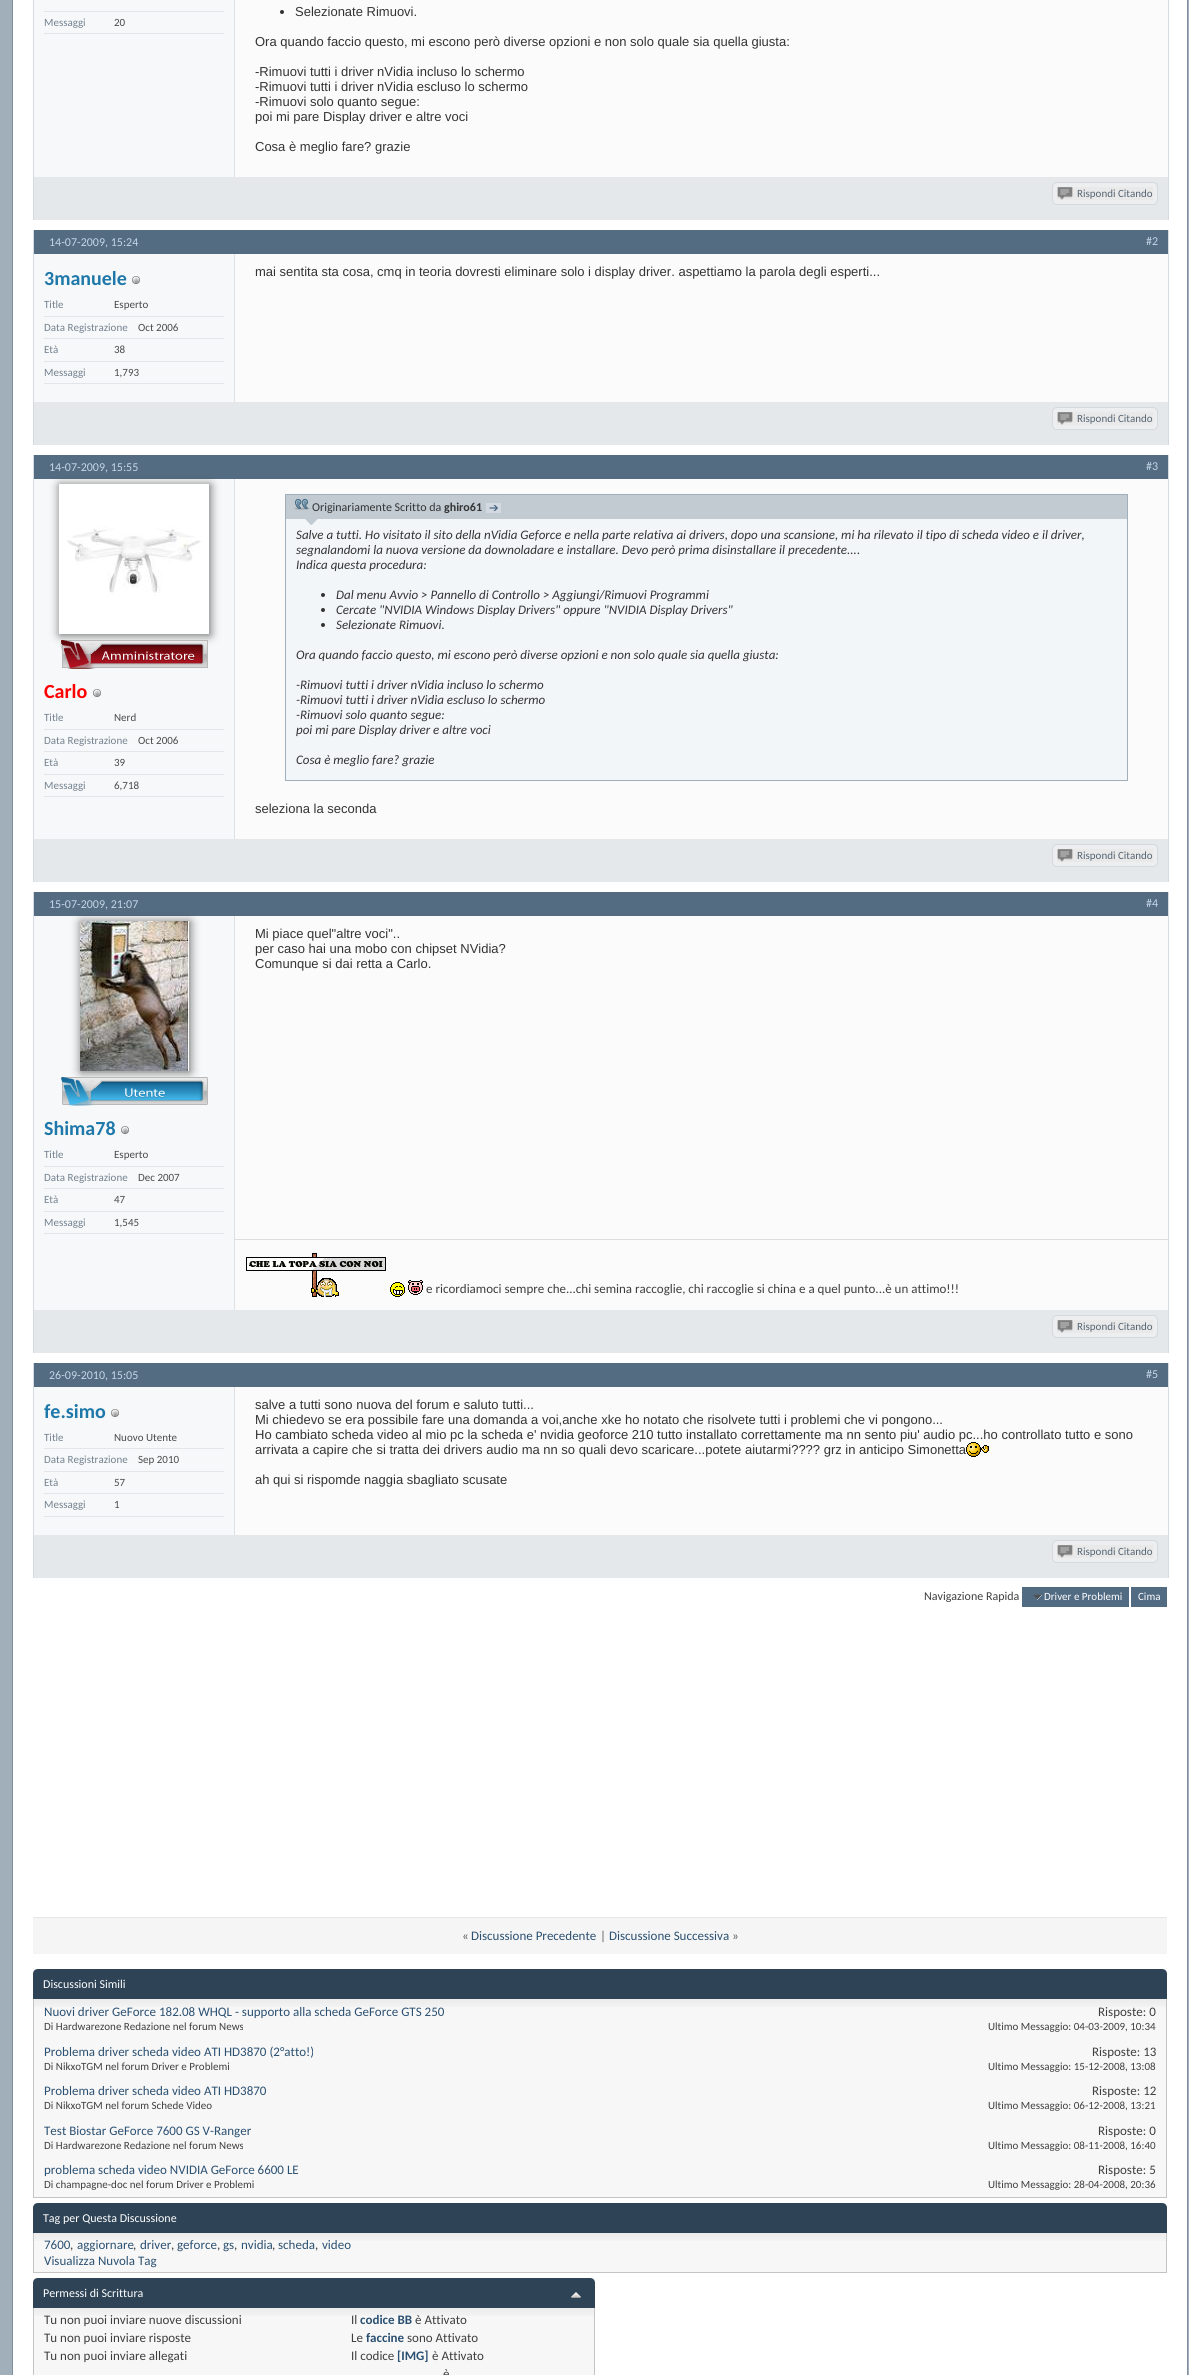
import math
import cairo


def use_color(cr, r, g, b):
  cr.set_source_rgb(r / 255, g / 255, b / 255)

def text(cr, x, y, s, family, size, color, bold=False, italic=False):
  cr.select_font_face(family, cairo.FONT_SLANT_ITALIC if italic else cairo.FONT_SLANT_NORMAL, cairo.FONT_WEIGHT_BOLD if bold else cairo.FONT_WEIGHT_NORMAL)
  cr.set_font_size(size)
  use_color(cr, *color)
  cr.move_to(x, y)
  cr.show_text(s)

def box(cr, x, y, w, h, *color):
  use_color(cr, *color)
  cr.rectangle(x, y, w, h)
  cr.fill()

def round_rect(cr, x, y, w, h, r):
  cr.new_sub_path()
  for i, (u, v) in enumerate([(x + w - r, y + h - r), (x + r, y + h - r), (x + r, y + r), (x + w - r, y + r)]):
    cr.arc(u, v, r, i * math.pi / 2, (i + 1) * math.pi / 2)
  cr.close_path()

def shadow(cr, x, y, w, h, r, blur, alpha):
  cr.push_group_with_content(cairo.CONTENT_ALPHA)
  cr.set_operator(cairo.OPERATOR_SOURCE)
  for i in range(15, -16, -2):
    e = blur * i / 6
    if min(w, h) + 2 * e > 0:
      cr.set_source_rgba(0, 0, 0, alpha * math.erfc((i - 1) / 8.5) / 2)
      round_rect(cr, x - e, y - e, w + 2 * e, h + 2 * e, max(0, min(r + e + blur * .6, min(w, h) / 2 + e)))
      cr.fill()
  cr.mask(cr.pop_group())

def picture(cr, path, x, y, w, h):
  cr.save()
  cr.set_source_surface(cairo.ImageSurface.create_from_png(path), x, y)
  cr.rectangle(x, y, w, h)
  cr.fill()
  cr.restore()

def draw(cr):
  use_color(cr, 161, 175, 187)
  cr.paint()
  box(cr, 13, 0, 1174, 2375, 255, 255, 255)
  box(cr, 1187, 0, 1, 2375, 127, 143, 157)
  box(cr, 12, 0, 1, 2375, 127, 143, 157)
  box(cr, 34, 177, 1134, 43, 229, 232, 235)
  box(cr, 1168, 0, 1, 220, 212, 218, 225)
  box(cr, 33, 0, 1, 220, 212, 218, 225)
  box(cr, 34, 0, 200, 177, 247, 248, 249)
  box(cr, 44, 11, 180, 1, 227, 230, 232)
  box(cr, 44, 33, 180, 1, 227, 230, 232)
  box(cr, 235, 0, 933, 177, 251, 251, 251)
  box(cr, 234, 0, 1, 177, 221, 225, 229)
  use_color(cr, 51, 51, 51)
  cr.arc(282, 12, 2, 0, 2 * math.pi)
  cr.fill()
  use_color(cr, 236, 238, 240)
  round_rect(cr, 1052.5, 182.5, 105, 22, 4.5)
  cr.fill_preserve()
  use_color(cr, 211, 217, 223)
  cr.set_line_width(1)
  cr.stroke()
  box(cr, 1057, 187, 96, 13, 233, 233, 233)
  picture(cr, "img_01.png", 1057, 187, 16, 13)
  box(cr, 34, 402, 1134, 43, 229, 232, 235)
  box(cr, 1168, 230, 1, 215, 212, 218, 225)
  box(cr, 33, 230, 1, 215, 212, 218, 225)
  box(cr, 34, 230, 1134, 24, 84, 108, 130)
  box(cr, 34, 254, 200, 148, 247, 248, 249)
  picture(cr, "img_02.png", 132, 276, 8, 8)
  box(cr, 44, 316, 180, 1, 227, 230, 232)
  box(cr, 44, 338, 180, 1, 227, 230, 232)
  box(cr, 44, 361, 180, 1, 227, 230, 232)
  box(cr, 44, 383, 180, 1, 227, 230, 232)
  box(cr, 235, 254, 933, 148, 251, 251, 251)
  box(cr, 234, 254, 1, 148, 221, 225, 229)
  use_color(cr, 236, 238, 240)
  round_rect(cr, 1052.5, 407.5, 105, 22, 4.5)
  cr.fill_preserve()
  use_color(cr, 211, 217, 223)
  cr.stroke()
  box(cr, 1057, 412, 96, 13, 233, 233, 233)
  picture(cr, "img_01.png", 1057, 412, 16, 13)
  box(cr, 34, 839, 1134, 43, 229, 232, 235)
  box(cr, 1168, 455, 1, 427, 212, 218, 225)
  box(cr, 33, 455, 1, 427, 212, 218, 225)
  box(cr, 34, 455, 1134, 24, 84, 108, 130)
  box(cr, 34, 479, 200, 360, 247, 248, 249)
  use_color(cr, 50, 50, 50)
  shadow(cr, 60, 485, 150, 150, 0, 5, 0.75)
  picture(cr, "img_03.png", 59, 484, 150, 150)
  picture(cr, "img_04.png", 60, 640, 148, 29)
  picture(cr, "img_02.png", 93, 689, 8, 8)
  box(cr, 44, 729, 180, 1, 227, 230, 232)
  box(cr, 44, 751, 180, 1, 227, 230, 232)
  box(cr, 44, 774, 180, 1, 227, 230, 232)
  box(cr, 44, 796, 180, 1, 227, 230, 232)
  box(cr, 235, 479, 933, 360, 251, 251, 251)
  box(cr, 234, 479, 1, 360, 221, 225, 229)
  box(cr, 286, 519, 841, 261, 242, 246, 248)
  cr.rectangle(285.5, 494.5, 842, 286)
  use_color(cr, 161, 175, 187)
  cr.stroke()
  box(cr, 286, 495, 841, 24, 194, 202, 210)
  picture(cr, "img_05.png", 294, 499, 17, 11)
  picture(cr, "img_06.png", 486, 503, 15, 10)
  picture(cr, "img_07.png", 305, 519, 13, 6)
  use_color(cr, 51, 51, 51)
  cr.arc(323, 595, 2, 0, 2 * math.pi)
  cr.fill()
  cr.arc(323, 610, 2, 0, 2 * math.pi)
  cr.fill()
  cr.arc(323, 625, 2, 0, 2 * math.pi)
  cr.fill()
  use_color(cr, 236, 238, 240)
  round_rect(cr, 1052.5, 844.5, 105, 22, 4.5)
  cr.fill_preserve()
  use_color(cr, 211, 217, 223)
  cr.stroke()
  box(cr, 1057, 849, 96, 13, 233, 233, 233)
  picture(cr, "img_01.png", 1057, 849, 16, 13)
  box(cr, 34, 1310, 1134, 43, 229, 232, 235)
  box(cr, 1168, 892, 1, 461, 212, 218, 225)
  box(cr, 33, 892, 1, 461, 212, 218, 225)
  box(cr, 34, 892, 1134, 24, 84, 108, 130)
  box(cr, 34, 916, 200, 394, 247, 248, 249)
  use_color(cr, 50, 50, 50)
  shadow(cr, 81, 922, 109, 150, 0, 5, 0.75)
  picture(cr, "img_08.png", 80, 921, 109, 150)
  picture(cr, "img_09.png", 61, 1077, 147, 29)
  picture(cr, "img_02.png", 121, 1126, 8, 8)
  box(cr, 44, 1166, 180, 1, 227, 230, 232)
  box(cr, 44, 1188, 180, 1, 227, 230, 232)
  box(cr, 44, 1211, 180, 1, 227, 230, 232)
  box(cr, 44, 1233, 180, 1, 227, 230, 232)
  box(cr, 235, 916, 933, 394, 251, 251, 251)
  box(cr, 234, 916, 1, 394, 221, 225, 229)
  box(cr, 235, 1239, 933, 1, 221, 221, 221)
  picture(cr, "img_10.png", 246, 1253, 140, 44)
  picture(cr, "img_11.png", 390, 1282, 15, 15)
  picture(cr, "img_12.png", 408, 1280, 15, 15)
  use_color(cr, 236, 238, 240)
  round_rect(cr, 1052.5, 1315.5, 105, 22, 4.5)
  cr.fill_preserve()
  use_color(cr, 211, 217, 223)
  cr.stroke()
  box(cr, 1057, 1320, 96, 13, 233, 233, 233)
  picture(cr, "img_01.png", 1057, 1320, 16, 13)
  box(cr, 34, 1535, 1134, 43, 229, 232, 235)
  box(cr, 1168, 1363, 1, 215, 212, 218, 225)
  box(cr, 33, 1363, 1, 215, 212, 218, 225)
  box(cr, 34, 1363, 1134, 24, 84, 108, 130)
  box(cr, 34, 1387, 200, 148, 247, 248, 249)
  picture(cr, "img_02.png", 111, 1409, 8, 8)
  box(cr, 44, 1448, 180, 1, 227, 230, 232)
  box(cr, 44, 1471, 180, 1, 227, 230, 232)
  box(cr, 44, 1493, 180, 1, 227, 230, 232)
  box(cr, 44, 1516, 180, 1, 227, 230, 232)
  box(cr, 235, 1387, 933, 148, 251, 251, 251)
  box(cr, 234, 1387, 1, 148, 221, 225, 229)
  use_color(cr, 236, 238, 240)
  round_rect(cr, 1052.5, 1540.5, 105, 22, 4.5)
  cr.fill_preserve()
  use_color(cr, 211, 217, 223)
  cr.stroke()
  box(cr, 1057, 1545, 96, 13, 233, 233, 233)
  picture(cr, "img_01.png", 1057, 1545, 16, 13)
  box(cr, 1022, 1587, 107, 20, 81, 107, 131)
  picture(cr, "img_14.png", 1033, 1594, 9, 6)
  box(cr, 1131, 1587, 36, 20, 81, 107, 131)
  box(cr, 33, 1918, 1134, 36, 245, 245, 245)
  box(cr, 33, 1917, 1134, 1, 231, 231, 231)
  use_color(cr, 46, 67, 86)
  cr.new_path()
  cr.move_to(38, 1969)
  cr.line_to(1162, 1969)
  cr.curve_to(1165, 1969, 1167, 1971, 1167, 1974)
  cr.line_to(1167, 1999)
  cr.line_to(33, 1999)
  cr.line_to(33, 1974)
  cr.curve_to(33, 1971, 35, 1969, 38, 1969)
  cr.close_path()
  cr.fill()
  box(cr, 34, 1999, 1132, 198, 247, 247, 247)
  picture(cr, "img_15.png", 34, 1999, 1132, 8)
  box(cr, 1166, 1999, 1, 199, 196, 196, 196)
  box(cr, 33, 2197, 1134, 1, 196, 196, 196)
  box(cr, 33, 1999, 1, 199, 196, 196, 196)
  use_color(cr, 46, 67, 86)
  cr.new_path()
  cr.move_to(38, 2203)
  cr.line_to(1162, 2203)
  cr.curve_to(1165, 2203, 1167, 2205, 1167, 2208)
  cr.line_to(1167, 2233)
  cr.line_to(33, 2233)
  cr.line_to(33, 2208)
  cr.curve_to(33, 2205, 35, 2203, 38, 2203)
  cr.close_path()
  cr.fill()
  box(cr, 34, 2233, 1132, 39, 247, 247, 247)
  picture(cr, "img_15.png", 34, 2233, 1132, 8)
  box(cr, 1166, 2233, 1, 40, 196, 196, 196)
  box(cr, 33, 2272, 1134, 1, 196, 196, 196)
  box(cr, 33, 2233, 1, 40, 196, 196, 196)
  use_color(cr, 46, 67, 86)
  cr.new_path()
  cr.move_to(38, 2278)
  cr.line_to(590, 2278)
  cr.curve_to(593, 2278, 595, 2280, 595, 2283)
  cr.line_to(595, 2308)
  cr.line_to(33, 2308)
  cr.line_to(33, 2283)
  cr.curve_to(33, 2280, 35, 2278, 38, 2278)
  cr.close_path()
  cr.fill()
  picture(cr, "img_16.png", 571, 2292, 10, 6)
  box(cr, 34, 2308, 560, 67, 247, 247, 247)
  picture(cr, "img_17.png", 34, 2308, 560, 8)
  box(cr, 594, 2308, 1, 67, 196, 196, 196)
  box(cr, 33, 2308, 1, 67, 196, 196, 196)
  text(cr, 44, 26, "Messaggi", "Carlito", 11, (115, 130, 144))
  text(cr, 114, 26, "20", "Carlito", 11, (74, 74, 74))
  text(cr, 295, 16, "Selezionate Rimuovi.", "Liberation Sans", 13, (51, 51, 51))
  text(cr, 255, 46, "Ora quando faccio questo, mi escono però diverse opzioni e non solo quale sia quella giusta:", "Liberation Sans", 13, (51, 51, 51))
  text(cr, 255, 76, "-Rimuovi tutti i driver nVidia incluso lo schermo", "Liberation Sans", 13, (51, 51, 51))
  text(cr, 255, 91, "-Rimuovi tutti i driver nVidia escluso lo schermo", "Liberation Sans", 13, (51, 51, 51))
  text(cr, 255, 106, "-Rimuovi solo quanto segue:", "Liberation Sans", 13, (51, 51, 51))
  text(cr, 255, 121, "poi mi pare Display driver e altre voci", "Liberation Sans", 13, (51, 51, 51))
  text(cr, 255, 151, "Cosa è meglio fare? grazie", "Liberation Sans", 13, (51, 51, 51))
  text(cr, 1077, 197, "Rispondi Citando", "Carlito", 11, (85, 101, 116))
  text(cr, 49, 246, "14-07-2009, 15:24", "Carlito", 12, (195, 214, 232))
  text(cr, 1146, 245, "#2", "Carlito", 12, (195, 214, 232))
  text(cr, 44, 285, "3manuele", "Carlito", 20, (30, 120, 169), bold=True)
  text(cr, 44, 308, "Title", "Carlito", 11, (115, 130, 144))
  text(cr, 114, 308, "Esperto", "Carlito", 11, (74, 74, 74))
  text(cr, 44, 331, "Data Registrazione", "Carlito", 11, (115, 130, 144))
  text(cr, 138, 331, "Oct 2006", "Carlito", 11, (74, 74, 74))
  text(cr, 44, 353, "Età", "Carlito", 11, (115, 130, 144))
  text(cr, 114, 353, "38", "Carlito", 11, (74, 74, 74))
  text(cr, 44, 376, "Messaggi", "Carlito", 11, (115, 130, 144))
  text(cr, 114, 376, "1,793", "Carlito", 11, (74, 74, 74))
  text(cr, 255, 276, "mai sentita sta cosa, cmq in teoria dovresti eliminare solo i display driver. aspettiamo la parola degli esperti...", "Liberation Sans", 13, (51, 51, 51))
  text(cr, 1077, 422, "Rispondi Citando", "Carlito", 11, (85, 101, 116))
  text(cr, 49, 471, "14-07-2009, 15:55", "Carlito", 12, (195, 214, 232))
  text(cr, 1146, 470, "#3", "Carlito", 12, (195, 214, 232))
  text(cr, 44, 698, "Carlo", "Carlito", 20, (255, 0, 0), bold=True)
  text(cr, 44, 721, "Title", "Carlito", 11, (115, 130, 144))
  text(cr, 114, 721, "Nerd", "Carlito", 11, (74, 74, 74))
  text(cr, 44, 744, "Data Registrazione", "Carlito", 11, (115, 130, 144))
  text(cr, 138, 744, "Oct 2006", "Carlito", 11, (74, 74, 74))
  text(cr, 44, 766, "Età", "Carlito", 11, (115, 130, 144))
  text(cr, 114, 766, "39", "Carlito", 11, (74, 74, 74))
  text(cr, 44, 789, "Messaggi", "Carlito", 11, (115, 130, 144))
  text(cr, 114, 789, "6,718", "Carlito", 11, (74, 74, 74))
  text(cr, 312, 511, "Originariamente Scritto da", "Carlito", 12, (51, 51, 51))
  text(cr, 444, 511, "ghiro61", "Carlito", 12, (51, 51, 51), bold=True)
  text(cr, 296, 539, "Salve a tutti. Ho visitato il sito della nVidia Geforce e nella parte relativa ai drivers, dopo una scansione, mi ha rilevato il tipo di scheda video e il driver,", "Carlito", 13, (51, 51, 51), italic=True)
  text(cr, 296, 554, "segnalandomi la nuova versione da downoladare e installare. Devo però prima disinstallare il precedente....", "Carlito", 13, (51, 51, 51), italic=True)
  text(cr, 296, 569, "Indica questa procedura:", "Carlito", 13, (51, 51, 51), italic=True)
  text(cr, 336, 599, "Dal menu Avvio > Pannello di Controllo > Aggiungi/Rimuovi Programmi", "Carlito", 13, (51, 51, 51), italic=True)
  text(cr, 336, 614, "Cercate \"NVIDIA Windows Display Drivers\" oppure \"NVIDIA Display Drivers\"", "Carlito", 13, (51, 51, 51), italic=True)
  text(cr, 336, 629, "Selezionate Rimuovi.", "Carlito", 13, (51, 51, 51), italic=True)
  text(cr, 296, 659, "Ora quando faccio questo, mi escono però diverse opzioni e non solo quale sia quella giusta:", "Carlito", 13, (51, 51, 51), italic=True)
  text(cr, 296, 689, "-Rimuovi tutti i driver nVidia incluso lo schermo", "Carlito", 13, (51, 51, 51), italic=True)
  text(cr, 296, 704, "-Rimuovi tutti i driver nVidia escluso lo schermo", "Carlito", 13, (51, 51, 51), italic=True)
  text(cr, 296, 719, "-Rimuovi solo quanto segue:", "Carlito", 13, (51, 51, 51), italic=True)
  text(cr, 296, 734, "poi mi pare Display driver e altre voci", "Carlito", 13, (51, 51, 51), italic=True)
  text(cr, 296, 764, "Cosa è meglio fare? grazie", "Carlito", 13, (51, 51, 51), italic=True)
  text(cr, 255, 813, "seleziona la seconda", "Liberation Sans", 13, (51, 51, 51))
  text(cr, 1077, 859, "Rispondi Citando", "Carlito", 11, (85, 101, 116))
  text(cr, 49, 908, "15-07-2009, 21:07", "Carlito", 12, (195, 214, 232))
  text(cr, 1146, 907, "#4", "Carlito", 12, (195, 214, 232))
  text(cr, 44, 1135, "Shima78", "Carlito", 20, (30, 120, 169), bold=True)
  text(cr, 44, 1158, "Title", "Carlito", 11, (115, 130, 144))
  text(cr, 114, 1158, "Esperto", "Carlito", 11, (74, 74, 74))
  text(cr, 44, 1181, "Data Registrazione", "Carlito", 11, (115, 130, 144))
  text(cr, 138, 1181, "Dec 2007", "Carlito", 11, (74, 74, 74))
  text(cr, 44, 1203, "Età", "Carlito", 11, (115, 130, 144))
  text(cr, 114, 1203, "47", "Carlito", 11, (74, 74, 74))
  text(cr, 44, 1226, "Messaggi", "Carlito", 11, (115, 130, 144))
  text(cr, 114, 1226, "1,545", "Carlito", 11, (74, 74, 74))
  text(cr, 255, 938, "Mi piace quel\"altre voci\"..", "Liberation Sans", 13, (51, 51, 51))
  text(cr, 255, 953, "per caso hai una mobo con chipset NVidia?", "Liberation Sans", 13, (51, 51, 51))
  text(cr, 255, 968, "Comunque si dai retta a Carlo.", "Liberation Sans", 13, (51, 51, 51))
  text(cr, 426, 1293, "e ricordiamoci sempre che...chi semina raccoglie, chi raccoglie si china e a quel punto...è un attimo!!!", "Carlito", 13, (62, 62, 62))
  text(cr, 1077, 1330, "Rispondi Citando", "Carlito", 11, (85, 101, 116))
  text(cr, 49, 1379, "26-09-2010, 15:05", "Carlito", 12, (195, 214, 232))
  text(cr, 1146, 1378, "#5", "Carlito", 12, (195, 214, 232))
  text(cr, 44, 1418, "fe.simo", "Carlito", 20, (30, 120, 169), bold=True)
  text(cr, 44, 1441, "Title", "Carlito", 11, (115, 130, 144))
  text(cr, 114, 1441, "Nuovo Utente", "Carlito", 11, (74, 74, 74))
  text(cr, 44, 1463, "Data Registrazione", "Carlito", 11, (115, 130, 144))
  text(cr, 138, 1463, "Sep 2010", "Carlito", 11, (74, 74, 74))
  text(cr, 44, 1486, "Età", "Carlito", 11, (115, 130, 144))
  text(cr, 114, 1486, "57", "Carlito", 11, (74, 74, 74))
  text(cr, 44, 1508, "Messaggi", "Carlito", 11, (115, 130, 144))
  text(cr, 114, 1508, "1", "Carlito", 11, (74, 74, 74))
  text(cr, 255, 1409, "salve a tutti sono nuova del forum e saluto tutti...", "Liberation Sans", 13, (51, 51, 51))
  text(cr, 255, 1424, "Mi chiedevo se era possibile fare una domanda a voi,anche xke ho notato che risolvete tutti i problemi che vi pongono...", "Liberation Sans", 13, (51, 51, 51))
  text(cr, 255, 1439, "Ho cambiato scheda video al mio pc la scheda e' nvidia geoforce 210 tutto installato correttamente ma nn sento piu' audio pc...ho controllato tutto e sono", "Liberation Sans", 13, (51, 51, 51))
  text(cr, 255, 1454, "arrivata a capire che si tratta dei drivers audio ma nn so quali devo scaricare...potete aiutarmi???? grz in anticipo Simonetta", "Liberation Sans", 13, (51, 51, 51))
  picture(cr, "img_13.png", 966, 1442, 23, 15)
  text(cr, 255, 1484, "ah qui si rispomde naggia sbagliato scusate", "Liberation Sans", 13, (51, 51, 51))
  text(cr, 1077, 1555, "Rispondi Citando", "Carlito", 11, (85, 101, 116))
  text(cr, 924, 1600, "Navigazione Rapida", "Carlito", 12, (62, 62, 62))
  text(cr, 1044, 1600, "Driver e Problemi", "Carlito", 11, (255, 255, 255))
  text(cr, 1138, 1600, "Cima", "Carlito", 11, (255, 255, 255))
  text(cr, 462, 1940, "«", "Carlito", 13, (93, 93, 93))
  text(cr, 471, 1940, "Discussione Precedente", "Carlito", 13, (43, 80, 113))
  text(cr, 600, 1940, "|", "Carlito", 13, (93, 93, 93))
  text(cr, 609, 1940, "Discussione Successiva", "Carlito", 13, (43, 80, 113))
  text(cr, 732, 1940, "»", "Carlito", 13, (93, 93, 93))
  text(cr, 43, 1988, "Discussioni Simili", "Carlito", 12, (255, 255, 255))
  text(cr, 44, 2016, "Nuovi driver GeForce 182.08 WHQL - supporto alla scheda GeForce GTS 250", "Carlito", 13, (43, 80, 113))
  text(cr, 44, 2030, "Di Hardwarezone Redazione nel forum News", "Carlito", 11, (62, 62, 62))
  text(cr, 1098, 2016, "Risposte: 0", "Carlito", 13, (62, 62, 62))
  text(cr, 988, 2030, "Ultimo Messaggio: 04-03-2009, 10:34", "Carlito", 11, (62, 62, 62))
  text(cr, 44, 2056, "Problema driver scheda video ATI HD3870 (2°atto!)", "Carlito", 13, (43, 80, 113))
  text(cr, 44, 2070, "Di NikxoTGM nel forum Driver e Problemi", "Carlito", 11, (62, 62, 62))
  text(cr, 1092, 2056, "Risposte: 13", "Carlito", 13, (62, 62, 62))
  text(cr, 988, 2070, "Ultimo Messaggio: 15-12-2008, 13:08", "Carlito", 11, (62, 62, 62))
  text(cr, 44, 2095, "Problema driver scheda video ATI HD3870", "Carlito", 13, (43, 80, 113))
  text(cr, 44, 2109, "Di NikxoTGM nel forum Schede Video", "Carlito", 11, (62, 62, 62))
  text(cr, 1092, 2095, "Risposte: 12", "Carlito", 13, (62, 62, 62))
  text(cr, 988, 2109, "Ultimo Messaggio: 06-12-2008, 13:21", "Carlito", 11, (62, 62, 62))
  text(cr, 44, 2135, "Test Biostar GeForce 7600 GS V-Ranger", "Carlito", 13, (43, 80, 113))
  text(cr, 44, 2149, "Di Hardwarezone Redazione nel forum News", "Carlito", 11, (62, 62, 62))
  text(cr, 1098, 2135, "Risposte: 0", "Carlito", 13, (62, 62, 62))
  text(cr, 988, 2149, "Ultimo Messaggio: 08-11-2008, 16:40", "Carlito", 11, (62, 62, 62))
  text(cr, 44, 2174, "problema scheda video NVIDIA GeForce 6600 LE", "Carlito", 13, (43, 80, 113))
  text(cr, 44, 2188, "Di champagne-doc nel forum Driver e Problemi", "Carlito", 11, (62, 62, 62))
  text(cr, 1098, 2174, "Risposte: 5", "Carlito", 13, (62, 62, 62))
  text(cr, 988, 2188, "Ultimo Messaggio: 28-04-2008, 20:36", "Carlito", 11, (62, 62, 62))
  text(cr, 43, 2222, "Tag per Questa Discussione", "Carlito", 12, (255, 255, 255))
  text(cr, 44, 2249, "7600", "Carlito", 13, (43, 80, 113))
  text(cr, 70, 2249, ",", "Carlito", 13, (62, 62, 62))
  text(cr, 77, 2249, "aggiornare", "Carlito", 13, (43, 80, 113))
  text(cr, 133, 2249, ",", "Carlito", 13, (62, 62, 62))
  text(cr, 140, 2249, "driver", "Carlito", 13, (43, 80, 113))
  text(cr, 171, 2249, ",", "Carlito", 13, (62, 62, 62))
  text(cr, 177, 2249, "geforce", "Carlito", 13, (43, 80, 113))
  text(cr, 217, 2249, ",", "Carlito", 13, (62, 62, 62))
  text(cr, 223, 2249, "gs", "Carlito", 13, (43, 80, 113))
  text(cr, 234, 2249, ",", "Carlito", 13, (62, 62, 62))
  text(cr, 241, 2249, "nvidia", "Carlito", 13, (43, 80, 113))
  text(cr, 272, 2249, ",", "Carlito", 13, (62, 62, 62))
  text(cr, 278, 2249, "scheda", "Carlito", 13, (43, 80, 113))
  text(cr, 315, 2249, ",", "Carlito", 13, (62, 62, 62))
  text(cr, 322, 2249, "video", "Carlito", 13, (43, 80, 113))
  text(cr, 44, 2265, "Visualizza Nuvola Tag", "Carlito", 13, (43, 80, 113))
  text(cr, 43, 2297, "Permessi di Scrittura", "Carlito", 12, (255, 255, 255))
  text(cr, 44, 2324, "Tu non puoi inviare nuove discussioni", "Carlito", 13, (62, 62, 62))
  text(cr, 44, 2342, "Tu non puoi inviare risposte", "Carlito", 13, (62, 62, 62))
  text(cr, 44, 2360, "Tu non puoi inviare allegati", "Carlito", 13, (62, 62, 62))
  text(cr, 351, 2324, "Il", "Carlito", 13, (62, 62, 62))
  text(cr, 360, 2324, "codice BB", "Carlito", 13, (43, 80, 113), bold=True)
  text(cr, 415, 2324, "è Attivato", "Carlito", 13, (62, 62, 62))
  text(cr, 351, 2342, "Le", "Carlito", 13, (62, 62, 62))
  text(cr, 366, 2342, "faccine", "Carlito", 13, (43, 80, 113), bold=True)
  text(cr, 407, 2342, "sono Attivato", "Carlito", 13, (62, 62, 62))
  text(cr, 351, 2360, "Il codice", "Carlito", 13, (62, 62, 62))
  text(cr, 397, 2360, "[IMG]", "Carlito", 13, (43, 80, 113), bold=True)
  text(cr, 432, 2360, "è Attivato", "Carlito", 13, (62, 62, 62))
  text(cr, 443, 2378, "è", "Carlito", 13, (62, 62, 62))


surface = cairo.ImageSurface(cairo.FORMAT_RGB24, 1189, 2375)
cr = cairo.Context(surface)
options = cairo.FontOptions()
options.set_hint_metrics(cairo.HINT_METRICS_OFF)
options.set_hint_style(cairo.HINT_STYLE_NONE)
cr.set_font_options(options)
cr.set_miter_limit(4)
draw(cr)
surface.write_to_png("out.png")
